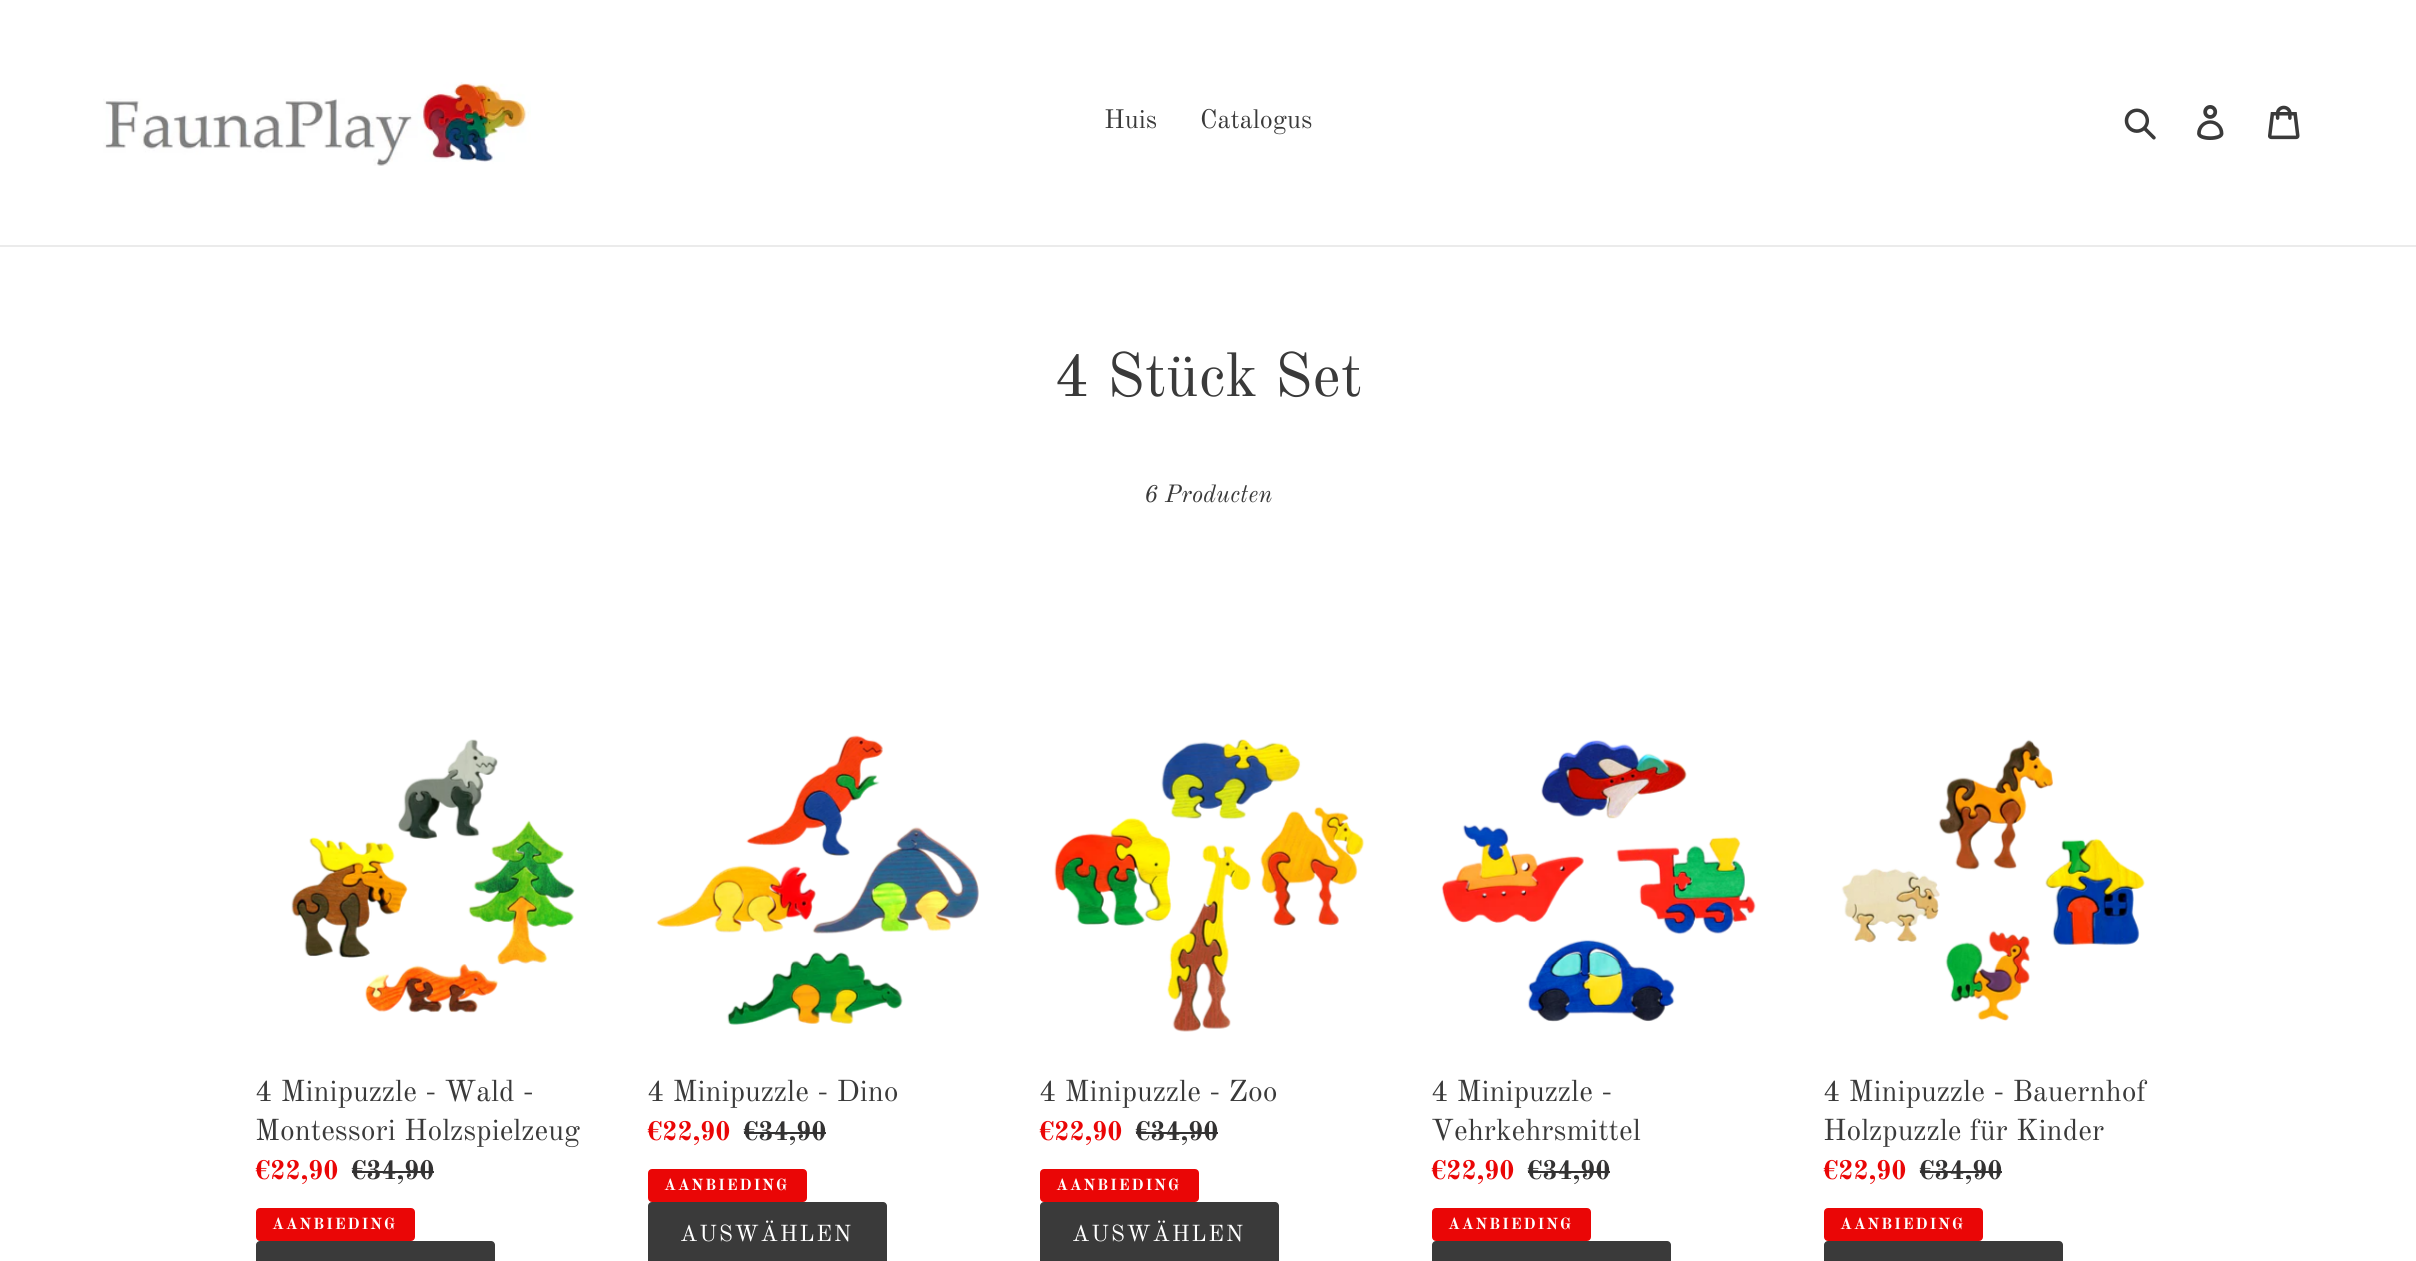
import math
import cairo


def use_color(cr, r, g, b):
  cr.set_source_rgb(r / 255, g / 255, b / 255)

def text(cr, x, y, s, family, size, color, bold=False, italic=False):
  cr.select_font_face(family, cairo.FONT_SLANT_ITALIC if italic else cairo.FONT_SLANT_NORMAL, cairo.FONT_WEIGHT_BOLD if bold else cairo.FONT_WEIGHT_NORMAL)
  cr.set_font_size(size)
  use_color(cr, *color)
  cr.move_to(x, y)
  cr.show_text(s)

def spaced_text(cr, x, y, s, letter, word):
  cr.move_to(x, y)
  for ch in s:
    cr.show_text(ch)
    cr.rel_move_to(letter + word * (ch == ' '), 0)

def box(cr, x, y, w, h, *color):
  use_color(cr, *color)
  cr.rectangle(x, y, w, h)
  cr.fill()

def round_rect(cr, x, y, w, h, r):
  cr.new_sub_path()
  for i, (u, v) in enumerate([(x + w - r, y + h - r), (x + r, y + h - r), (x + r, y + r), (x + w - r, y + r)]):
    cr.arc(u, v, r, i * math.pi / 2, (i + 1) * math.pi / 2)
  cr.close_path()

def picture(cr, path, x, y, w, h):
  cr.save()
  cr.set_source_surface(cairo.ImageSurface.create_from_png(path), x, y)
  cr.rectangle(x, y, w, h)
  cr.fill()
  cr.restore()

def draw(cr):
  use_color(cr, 255, 255, 255)
  cr.paint()
  box(cr, 0, 245, 2416, 2, 235, 235, 235)
  picture(cr, "img_01.png", 103, 82, 428, 84)
  picture(cr, "img_02.png", 2124, 108, 32, 32)
  picture(cr, "img_03.png", 2197, 105, 27, 35)
  picture(cr, "img_04.png", 2268, 105, 32, 35)
  picture(cr, "img_05.png", 291, 739, 284, 274)
  box(cr, 352, 1171, 82, 2, 51, 50, 50)
  use_color(cr, 234, 6, 6)
  round_rect(cr, 257, 1209, 157, 31, 3)
  cr.fill_preserve()
  cr.stroke()
  use_color(cr, 58, 58, 58)
  round_rect(cr, 256, 1241, 239, 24, 4)
  cr.fill()
  picture(cr, "img_06.png", 656, 735, 323, 290)
  box(cr, 744, 1132, 82, 2, 51, 50, 50)
  use_color(cr, 234, 6, 6)
  round_rect(cr, 649, 1170, 157, 31, 3)
  cr.fill_preserve()
  cr.stroke()
  use_color(cr, 58, 58, 58)
  round_rect(cr, 648, 1202, 239, 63, 4)
  cr.fill()
  picture(cr, "img_07.png", 1054, 739, 311, 293)
  box(cr, 1136, 1132, 82, 2, 51, 50, 50)
  use_color(cr, 234, 6, 6)
  round_rect(cr, 1041, 1170, 157, 31, 3)
  cr.fill_preserve()
  cr.stroke()
  use_color(cr, 58, 58, 58)
  round_rect(cr, 1040, 1202, 239, 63, 4)
  cr.fill()
  picture(cr, "img_08.png", 1441, 740, 315, 282)
  box(cr, 1528, 1171, 82, 2, 51, 50, 50)
  use_color(cr, 234, 6, 6)
  round_rect(cr, 1433, 1209, 157, 31, 3)
  cr.fill_preserve()
  cr.stroke()
  use_color(cr, 58, 58, 58)
  round_rect(cr, 1432, 1241, 239, 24, 4)
  cr.fill()
  picture(cr, "img_09.png", 1841, 739, 304, 282)
  box(cr, 1920, 1171, 82, 2, 51, 50, 50)
  use_color(cr, 234, 6, 6)
  round_rect(cr, 1825, 1209, 157, 31, 3)
  cr.fill_preserve()
  cr.stroke()
  use_color(cr, 58, 58, 58)
  round_rect(cr, 1824, 1241, 239, 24, 4)
  cr.fill()
  text(cr, 1104, 128, "Huis", "Old Standard TT", 26.25, (58, 58, 58))
  text(cr, 1200, 128, "Catalogus", "Old Standard TT", 26.25, (58, 58, 58))
  text(cr, 1054, 396, "4 Stück Set", "Old Standard TT", 61.25, (58, 58, 58))
  text(cr, 1144, 502, "6 Producten", "Old Standard TT", 24.5, (58, 58, 58), italic=True)
  text(cr, 255, 1101, "4 Minipuzzle - Wald -", "Old Standard TT", 29.75, (58, 58, 58))
  text(cr, 255, 1140, "Montessori Holzspielzeug", "Old Standard TT", 29.75, (58, 58, 58))
  text(cr, 255, 1179, "€22,90", "Old Standard TT", 26.25, (234, 6, 6), bold=True)
  text(cr, 351, 1179, "€34,90", "Old Standard TT", 26.25, (51, 50, 50), bold=True)
  cr.set_font_size(15.75)
  use_color(cr, 255, 255, 255)
  spaced_text(cr, 272, 1229, "AANBIEDING", 1.75, 0)
  text(cr, 647, 1101, "4 Minipuzzle - Dino", "Old Standard TT", 29.75, (58, 58, 58))
  text(cr, 647, 1140, "€22,90", "Old Standard TT", 26.25, (234, 6, 6), bold=True)
  text(cr, 743, 1140, "€34,90", "Old Standard TT", 26.25, (51, 50, 50), bold=True)
  cr.set_font_size(15.75)
  use_color(cr, 255, 255, 255)
  spaced_text(cr, 664, 1190, "AANBIEDING", 1.75, 0)
  cr.select_font_face("Old Standard TT")
  cr.set_font_size(22.75)
  spaced_text(cr, 680, 1241, "AUSWÄHLEN", 1.75, 0)
  text(cr, 1039, 1101, "4 Minipuzzle - Zoo", "Old Standard TT", 29.75, (58, 58, 58))
  text(cr, 1039, 1140, "€22,90", "Old Standard TT", 26.25, (234, 6, 6), bold=True)
  text(cr, 1135, 1140, "€34,90", "Old Standard TT", 26.25, (51, 50, 50), bold=True)
  cr.set_font_size(15.75)
  use_color(cr, 255, 255, 255)
  spaced_text(cr, 1056, 1190, "AANBIEDING", 1.75, 0)
  cr.select_font_face("Old Standard TT")
  cr.set_font_size(22.75)
  spaced_text(cr, 1072, 1241, "AUSWÄHLEN", 1.75, 0)
  text(cr, 1431, 1101, "4 Minipuzzle -", "Old Standard TT", 29.75, (58, 58, 58))
  text(cr, 1431, 1140, "Vehrkehrsmittel", "Old Standard TT", 29.75, (58, 58, 58))
  text(cr, 1431, 1179, "€22,90", "Old Standard TT", 26.25, (234, 6, 6), bold=True)
  text(cr, 1527, 1179, "€34,90", "Old Standard TT", 26.25, (51, 50, 50), bold=True)
  cr.set_font_size(15.75)
  use_color(cr, 255, 255, 255)
  spaced_text(cr, 1448, 1229, "AANBIEDING", 1.75, 0)
  text(cr, 1823, 1101, "4 Minipuzzle - Bauernhof", "Old Standard TT", 29.75, (58, 58, 58))
  text(cr, 1823, 1140, "Holzpuzzle für Kinder", "Old Standard TT", 29.75, (58, 58, 58))
  text(cr, 1823, 1179, "€22,90", "Old Standard TT", 26.25, (234, 6, 6), bold=True)
  text(cr, 1919, 1179, "€34,90", "Old Standard TT", 26.25, (51, 50, 50), bold=True)
  cr.set_font_size(15.75)
  use_color(cr, 255, 255, 255)
  spaced_text(cr, 1840, 1229, "AANBIEDING", 1.75, 0)


surface = cairo.ImageSurface(cairo.FORMAT_RGB24, 2416, 1261)
cr = cairo.Context(surface)
options = cairo.FontOptions()
options.set_hint_metrics(cairo.HINT_METRICS_OFF)
options.set_hint_style(cairo.HINT_STYLE_NONE)
cr.set_font_options(options)
cr.set_miter_limit(4)
draw(cr)
surface.write_to_png("out.png")
